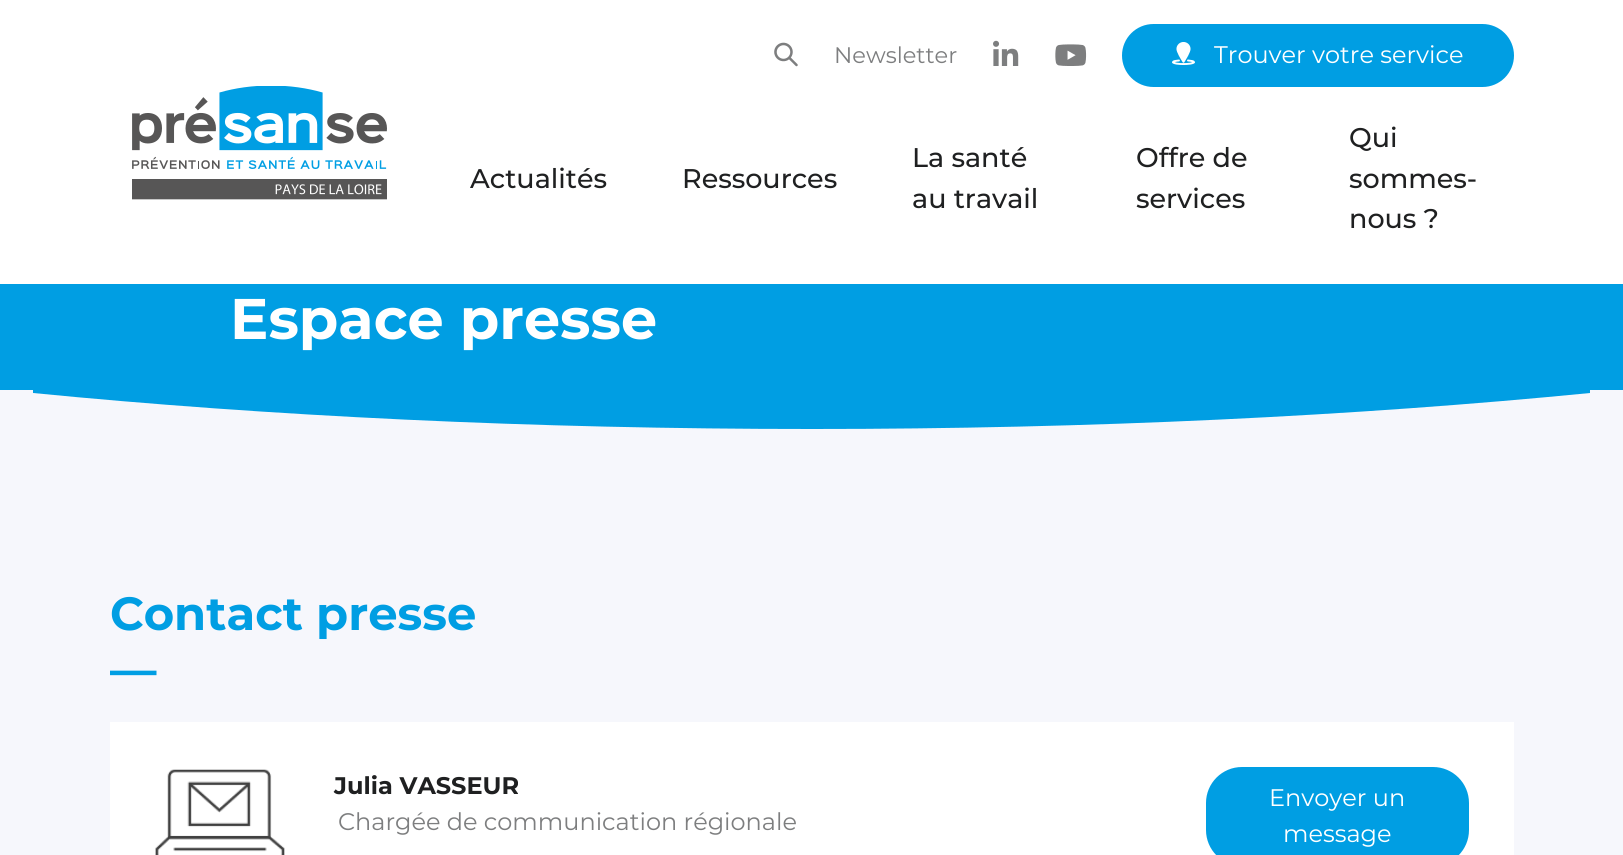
import math
import cairo


def use_color(cr, r, g, b):
  cr.set_source_rgb(r / 255, g / 255, b / 255)

def text(cr, x, y, s, family, size, color, bold=False, italic=False):
  cr.select_font_face(family, cairo.FONT_SLANT_ITALIC if italic else cairo.FONT_SLANT_NORMAL, cairo.FONT_WEIGHT_BOLD if bold else cairo.FONT_WEIGHT_NORMAL)
  cr.set_font_size(size)
  use_color(cr, *color)
  cr.move_to(x, y)
  cr.show_text(s)

def box(cr, x, y, w, h, *color):
  use_color(cr, *color)
  cr.rectangle(x, y, w, h)
  cr.fill()

def round_rect(cr, x, y, w, h, r):
  cr.new_sub_path()
  for i, (u, v) in enumerate([(x + w - r, y + h - r), (x + r, y + h - r), (x + r, y + r), (x + w - r, y + r)]):
    cr.arc(u, v, r, i * math.pi / 2, (i + 1) * math.pi / 2)
  cr.close_path()

def picture(cr, path, x, y, w, h):
  cr.save()
  cr.set_source_surface(cairo.ImageSurface.create_from_png(path), x, y)
  cr.rectangle(x, y, w, h)
  cr.fill()
  cr.restore()

def draw(cr):
  use_color(cr, 246, 247, 252)
  cr.paint()
  box(cr, 0, 0, 1623, 284, 255, 255, 255)
  picture(cr, "img_01.png", 132, 86, 255, 114)
  picture(cr, "img_02.png", 774, 42, 24, 25)
  picture(cr, "img_03.png", 993, 40, 26, 26)
  picture(cr, "img_04.png", 1055, 44, 32, 22)
  use_color(cr, 0, 158, 227)
  round_rect(cr, 1123, 25, 390, 61, 30.5)
  cr.fill_preserve()
  cr.stroke()
  picture(cr, "img_05.png", 1172, 42, 23, 23)
  box(cr, 0, 284, 1623, 106, 0, 158, 227)
  cr.save()
  cr.rectangle(0, 389, 1623, 43)
  cr.clip()
  cr.new_path()
  cr.move_to(33, 393)
  cr.curve_to(267, 416, 532, 429, 812, 429)
  cr.curve_to(1092, 429, 1356, 416, 1590, 393)
  cr.line_to(1590, 388)
  cr.line_to(33, 388)
  cr.close_path()
  cr.fill()
  cr.restore()
  box(cr, 110, 722, 1404, 133, 255, 255, 255)
  picture(cr, "img_06.png", 155, 769, 130, 86)
  use_color(cr, 0, 158, 227)
  round_rect(cr, 1207, 768, 261, 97, 35)
  cr.fill_preserve()
  cr.stroke()
  text(cr, 834, 63, "Newsletter", "Montserrat", 22.5, (125, 126, 127))
  text(cr, 1214, 63, "Trouver votre service", "Montserrat", 24, (255, 255, 255))
  text(cr, 470, 188, "Actualités", "Montserrat Medium", 27, (31, 32, 33))
  text(cr, 682, 188, "Ressources", "Montserrat Medium", 27, (31, 32, 33))
  text(cr, 912, 167, "La santé", "Montserrat Medium", 27, (31, 32, 33))
  text(cr, 912, 208, "au travail", "Montserrat Medium", 27, (31, 32, 33))
  text(cr, 1136, 167, "Offre de", "Montserrat Medium", 27, (31, 32, 33))
  text(cr, 1136, 208, "services", "Montserrat Medium", 27, (31, 32, 33))
  text(cr, 1349, 147, "Qui", "Montserrat Medium", 27, (31, 32, 33))
  text(cr, 1349, 188, "sommes-", "Montserrat Medium", 27, (31, 32, 33))
  text(cr, 1349, 228, "nous ?", "Montserrat Medium", 27, (31, 32, 33))
  text(cr, 230, 339, "Espace presse", "Montserrat", 57.25, (255, 255, 255), bold=True)
  text(cr, 110, 630, "Contact presse", "Montserrat", 46.5, (0, 158, 227), bold=True)
  text(cr, 110, 686, "—", "Montserrat", 46.5, (0, 158, 227), bold=True)
  text(cr, 334, 794, "Julia VASSEUR", "Montserrat", 24, (31, 32, 33), bold=True)
  text(cr, 338, 830, "Chargée de communication régionale", "Montserrat", 24, (125, 126, 127))
  text(cr, 1269, 806, "Envoyer un", "Montserrat", 24, (255, 255, 255))
  text(cr, 1283, 842, "message", "Montserrat", 24, (255, 255, 255))


surface = cairo.ImageSurface(cairo.FORMAT_RGB24, 1623, 855)
cr = cairo.Context(surface)
options = cairo.FontOptions()
options.set_hint_metrics(cairo.HINT_METRICS_OFF)
options.set_hint_style(cairo.HINT_STYLE_NONE)
cr.set_font_options(options)
cr.set_miter_limit(4)
draw(cr)
surface.write_to_png("out.png")
